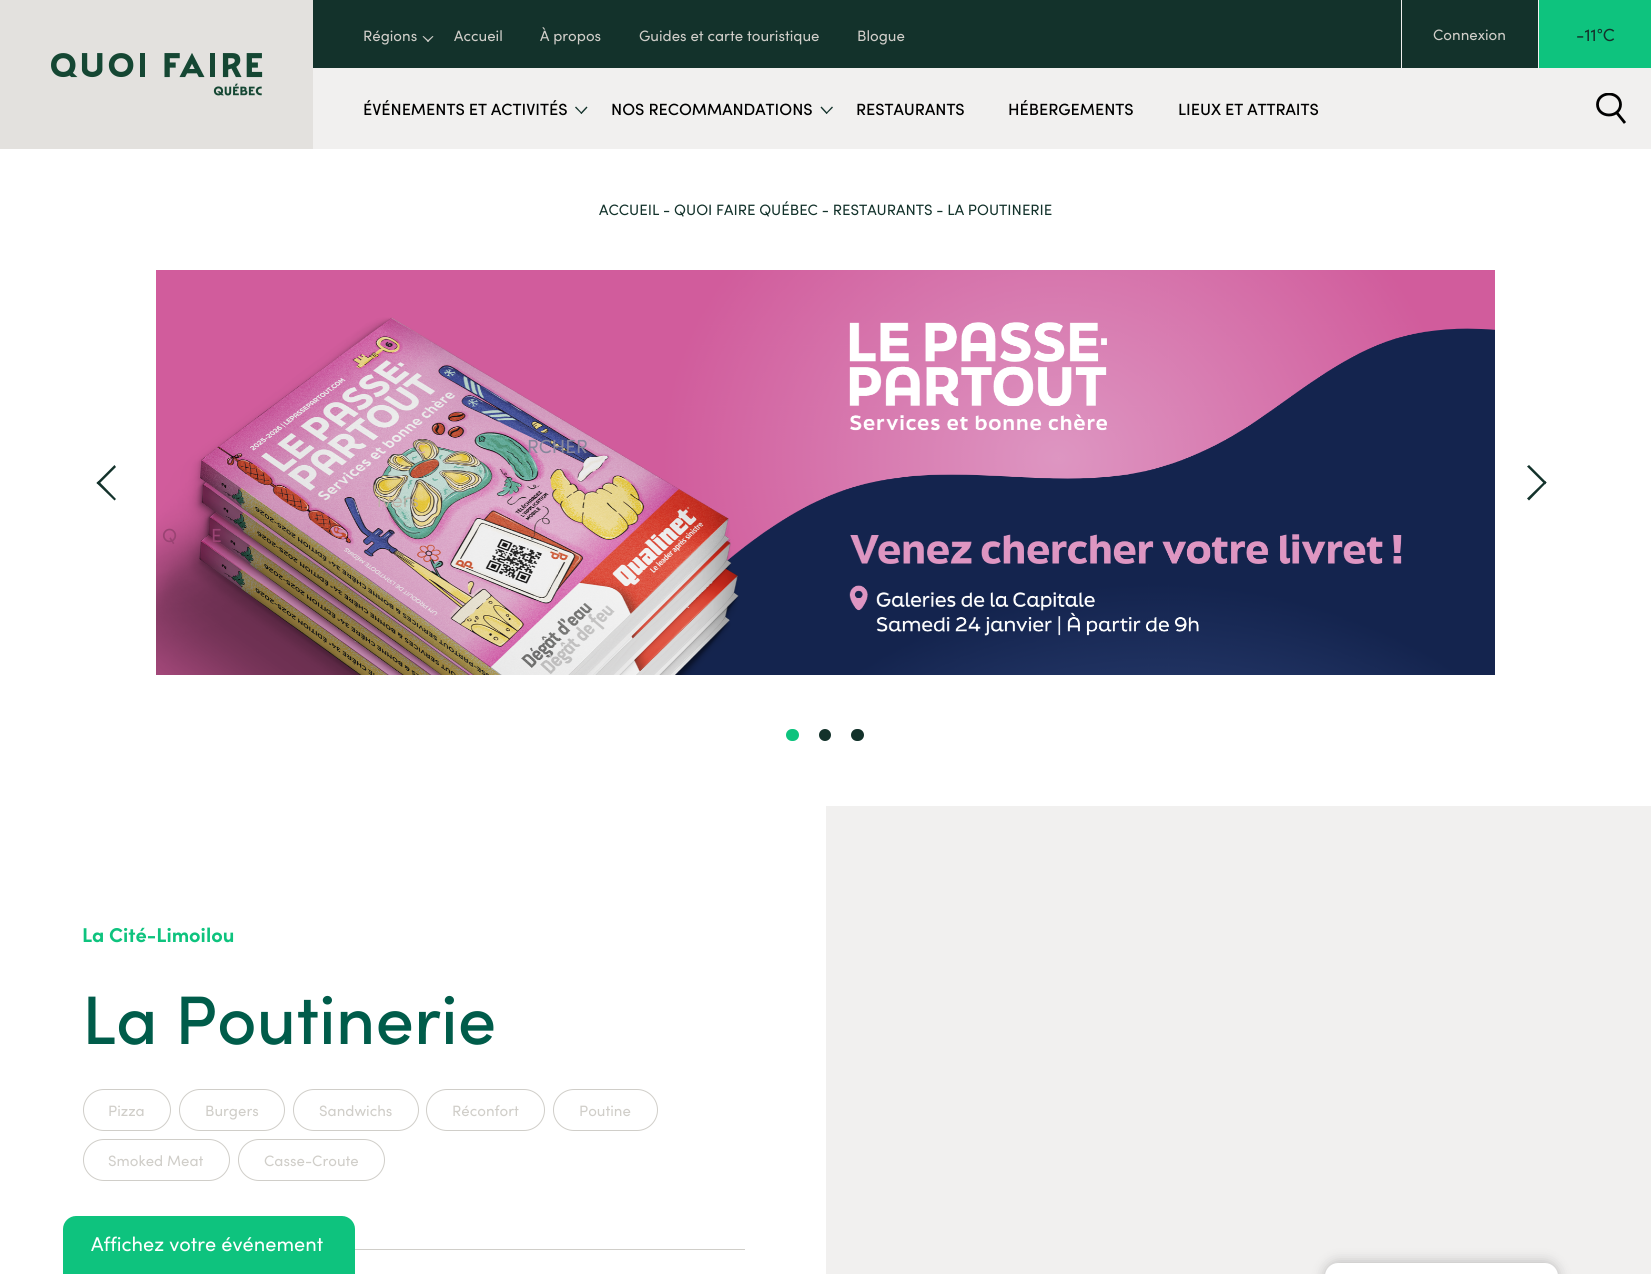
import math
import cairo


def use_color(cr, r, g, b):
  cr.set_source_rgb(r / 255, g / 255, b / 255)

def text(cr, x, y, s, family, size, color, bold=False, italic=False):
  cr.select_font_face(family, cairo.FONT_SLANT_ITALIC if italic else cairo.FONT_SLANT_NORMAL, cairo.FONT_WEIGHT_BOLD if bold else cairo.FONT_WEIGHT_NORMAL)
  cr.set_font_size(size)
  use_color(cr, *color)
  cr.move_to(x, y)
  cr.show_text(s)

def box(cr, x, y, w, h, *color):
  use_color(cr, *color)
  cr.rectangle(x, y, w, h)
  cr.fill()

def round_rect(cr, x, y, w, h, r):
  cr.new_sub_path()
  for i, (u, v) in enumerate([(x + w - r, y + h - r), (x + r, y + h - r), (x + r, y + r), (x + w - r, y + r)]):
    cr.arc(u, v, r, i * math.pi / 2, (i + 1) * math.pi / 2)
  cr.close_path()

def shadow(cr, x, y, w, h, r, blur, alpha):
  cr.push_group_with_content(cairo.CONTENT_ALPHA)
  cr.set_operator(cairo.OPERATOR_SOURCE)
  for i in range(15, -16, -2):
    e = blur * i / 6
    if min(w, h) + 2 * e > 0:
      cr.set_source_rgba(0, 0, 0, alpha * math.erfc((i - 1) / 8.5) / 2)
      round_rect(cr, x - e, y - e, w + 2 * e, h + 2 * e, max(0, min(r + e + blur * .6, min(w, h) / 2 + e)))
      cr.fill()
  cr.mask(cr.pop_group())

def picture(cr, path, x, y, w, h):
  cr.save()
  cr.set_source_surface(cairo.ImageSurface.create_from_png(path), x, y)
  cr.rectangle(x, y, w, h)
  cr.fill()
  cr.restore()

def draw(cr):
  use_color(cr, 255, 255, 255)
  cr.paint()
  box(cr, 0, 0, 313, 149, 227, 225, 222)
  picture(cr, "img_01.png", 51, 53, 212, 43)
  box(cr, 313, 0, 1225, 68, 19, 50, 43)
  use_color(cr, 208, 206, 201)
  cr.new_path()
  cr.move_to(432.5, 36)
  cr.line_to(433.5, 36.5)
  cr.line_to(428, 42)
  cr.line_to(427, 41)
  cr.close_path()
  cr.fill()
  cr.new_path()
  cr.move_to(423.5, 36)
  cr.line_to(429, 41)
  cr.line_to(428, 42)
  cr.line_to(422.5, 36.5)
  cr.close_path()
  cr.fill()
  box(cr, 1538, 0, 1, 68, 241, 240, 239)
  box(cr, 1401, 0, 1, 68, 241, 240, 239)
  box(cr, 1539, 0, 112, 68, 14, 195, 126)
  box(cr, 313, 68, 1338, 81, 241, 240, 239)
  use_color(cr, 19, 50, 43)
  cr.new_path()
  cr.move_to(586.5, 106.5)
  cr.line_to(587.5, 107.5)
  cr.line_to(581.5, 114)
  cr.line_to(580.5, 113)
  cr.close_path()
  cr.fill()
  cr.new_path()
  cr.move_to(576, 106.5)
  cr.line_to(582, 113)
  cr.line_to(581.5, 114)
  cr.line_to(575, 107.5)
  cr.close_path()
  cr.fill()
  cr.new_path()
  cr.move_to(832, 106.5)
  cr.line_to(833, 107.5)
  cr.line_to(826.5, 114)
  cr.line_to(826, 113)
  cr.close_path()
  cr.fill()
  cr.new_path()
  cr.move_to(821.5, 106.5)
  cr.line_to(827.5, 113)
  cr.line_to(826.5, 114)
  cr.line_to(820.5, 107.5)
  cr.close_path()
  cr.fill()
  cr.save()
  cr.rectangle(1596, 93, 30, 31)
  cr.clip()
  cr.new_path()
  cr.move_to(1609, 94)
  cr.curve_to(1615.5, 94, 1620.5, 98.5, 1620.5, 104.5)
  cr.curve_to(1620.5, 110.5, 1615.5, 115, 1609, 115)
  cr.curve_to(1602.5, 115, 1597.5, 110.5, 1597.5, 104.5)
  cr.curve_to(1597.5, 98.5, 1602.5, 94, 1609, 94)
  cr.close_path()
  use_color(cr, 0, 0, 0)
  cr.set_line_width(2.8)
  cr.stroke()
  cr.restore()
  cr.new_path()
  cr.move_to(1617, 113)
  cr.line_to(1625, 123)
  use_color(cr, 0, 0, 0)
  cr.set_line_width(2.8)
  cr.stroke()
  picture(cr, "img_02.png", 156, 270, 1339, 405)
  use_color(cr, 19, 50, 43)
  cr.new_path()
  cr.move_to(116, 499)
  cr.line_to(114.5, 500.5)
  cr.line_to(96.5, 483)
  cr.line_to(98.5, 481)
  cr.close_path()
  cr.fill()
  cr.new_path()
  cr.move_to(116, 467)
  cr.line_to(98.5, 484.5)
  cr.line_to(96.5, 483)
  cr.line_to(114.5, 465)
  cr.close_path()
  cr.fill()
  cr.new_path()
  cr.move_to(1527, 466.5)
  cr.line_to(1529, 465)
  cr.line_to(1546.5, 482.5)
  cr.line_to(1545, 484.5)
  cr.close_path()
  cr.fill()
  cr.new_path()
  cr.move_to(1527, 498.5)
  cr.line_to(1545, 481)
  cr.line_to(1546.5, 482.5)
  cr.line_to(1529, 500.5)
  cr.close_path()
  cr.fill()
  use_color(cr, 14, 195, 126)
  round_rect(cr, 786, 729, 13, 12, 6)
  cr.fill()
  use_color(cr, 19, 50, 43)
  cr.arc(825, 735, 6, 0, 2 * math.pi)
  cr.fill()
  round_rect(cr, 851, 729, 13, 12, 6)
  cr.fill()
  round_rect(cr, 83.5, 1089.5, 87, 41, 20.5)
  use_color(cr, 208, 206, 201)
  cr.set_line_width(1)
  cr.stroke()
  round_rect(cr, 179.5, 1089.5, 105, 41, 20.5)
  cr.stroke()
  round_rect(cr, 293.5, 1089.5, 125, 41, 20.5)
  cr.stroke()
  round_rect(cr, 426.5, 1089.5, 118, 41, 20.5)
  cr.stroke()
  round_rect(cr, 553.5, 1089.5, 104, 41, 20.5)
  cr.stroke()
  round_rect(cr, 83.5, 1139.5, 146, 41, 20.5)
  cr.stroke()
  round_rect(cr, 238.5, 1139.5, 146, 41, 20.5)
  cr.stroke()
  box(cr, 355, 1249, 390, 1, 208, 206, 201)
  box(cr, 826, 806, 825, 468, 241, 240, 239)
  use_color(cr, 14, 195, 126)
  cr.new_path()
  cr.move_to(76, 1216)
  cr.line_to(342, 1216)
  cr.curve_to(349, 1216, 355, 1222, 355, 1229)
  cr.line_to(355, 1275)
  cr.line_to(63, 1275)
  cr.line_to(63, 1229)
  cr.curve_to(63, 1222, 69, 1216, 76, 1216)
  cr.close_path()
  cr.fill()
  use_color(cr, 0, 0, 0)
  shadow(cr, 1324, 1261, 235, 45, 14, 6, 0.2)
  use_color(cr, 255, 255, 255)
  cr.new_path()
  cr.move_to(1338, 1263)
  cr.line_to(1545, 1263)
  cr.curve_to(1552, 1263, 1558, 1269, 1558, 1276)
  cr.line_to(1558, 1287)
  cr.line_to(1325, 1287)
  cr.line_to(1325, 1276)
  cr.curve_to(1325, 1269, 1331, 1263, 1338, 1263)
  cr.close_path()
  cr.fill()
  text(cr, 363, 41, "Régions", "Sofia", 15, (208, 206, 201))
  text(cr, 454, 41, "Accueil", "Sofia", 15, (208, 206, 201))
  text(cr, 540, 41, "À propos", "Sofia", 15, (208, 206, 201))
  text(cr, 639, 41, "Guides et carte touristique", "Sofia", 15, (208, 206, 201))
  text(cr, 857, 41, "Blogue", "Sofia", 15, (208, 206, 201))
  text(cr, 1433, 40, "Connexion", "Sofia", 15, (208, 206, 201))
  text(cr, 1576, 41, "-11°C", "Sofia", 17.5, (19, 50, 43))
  text(cr, 363, 115, "ÉVÉNEMENTS ET ACTIVITÉS", "Sofia Medium", 16.25, (0, 0, 0))
  text(cr, 416, 453, "c", "Sofia Light", 20, (207, 170, 180))
  text(cr, 377, 507, "ivers", "Sofia Light", 20, (189, 175, 165))
  text(cr, 611, 115, "NOS RECOMMANDATIONS", "Sofia Medium", 16.25, (0, 0, 0))
  text(cr, 856, 115, "RESTAURANTS", "Sofia Medium", 16.25, (0, 0, 0))
  text(cr, 1008, 115, "HÉBERGEMENTS", "Sofia Medium", 16.25, (0, 0, 0))
  text(cr, 1178, 115, "LIEUX ET ATTRAITS", "Sofia Medium", 16.25, (0, 0, 0))
  text(cr, 599, 215, "ACCUEIL - QUOI FAIRE QUÉBEC - RESTAURANTS - LA POUTINERIE", "Sofia", 15, (19, 50, 43))
  text(cr, 82, 942, "La Cité-Limoilou", "Sofia", 20, (14, 195, 126), bold=True)
  text(cr, 82, 1044, "La Poutinerie", "Sofia Medium", 68.75, (0, 92, 74))
  text(cr, 108, 1116, "Pizza", "Sofia", 15, (208, 206, 201))
  text(cr, 205, 1116, "Burgers", "Sofia", 15, (208, 206, 201))
  text(cr, 319, 1116, "Sandwichs", "Sofia", 15, (208, 206, 201))
  text(cr, 452, 1116, "Réconfort", "Sofia", 15, (208, 206, 201))
  text(cr, 579, 1116, "Poutine", "Sofia", 15, (208, 206, 201))
  text(cr, 108, 1166, "Smoked Meat", "Sofia", 15, (208, 206, 201))
  text(cr, 264, 1166, "Casse-Croute", "Sofia", 15, (208, 206, 201))
  text(cr, 527, 453, "RCHER", "Sofia", 19, (135, 135, 156))
  text(cr, 162, 542, "Q", "Sofia", 19, (154, 67, 115))
  text(cr, 211, 542, "E", "Sofia", 19, (154, 67, 115))
  text(cr, 91, 1251, "Affichez votre événement", "Sofia", 20, (255, 255, 255))


surface = cairo.ImageSurface(cairo.FORMAT_RGB24, 1651, 1274)
cr = cairo.Context(surface)
options = cairo.FontOptions()
options.set_hint_metrics(cairo.HINT_METRICS_OFF)
options.set_hint_style(cairo.HINT_STYLE_NONE)
cr.set_font_options(options)
cr.set_miter_limit(4)
draw(cr)
surface.write_to_png("out.png")
